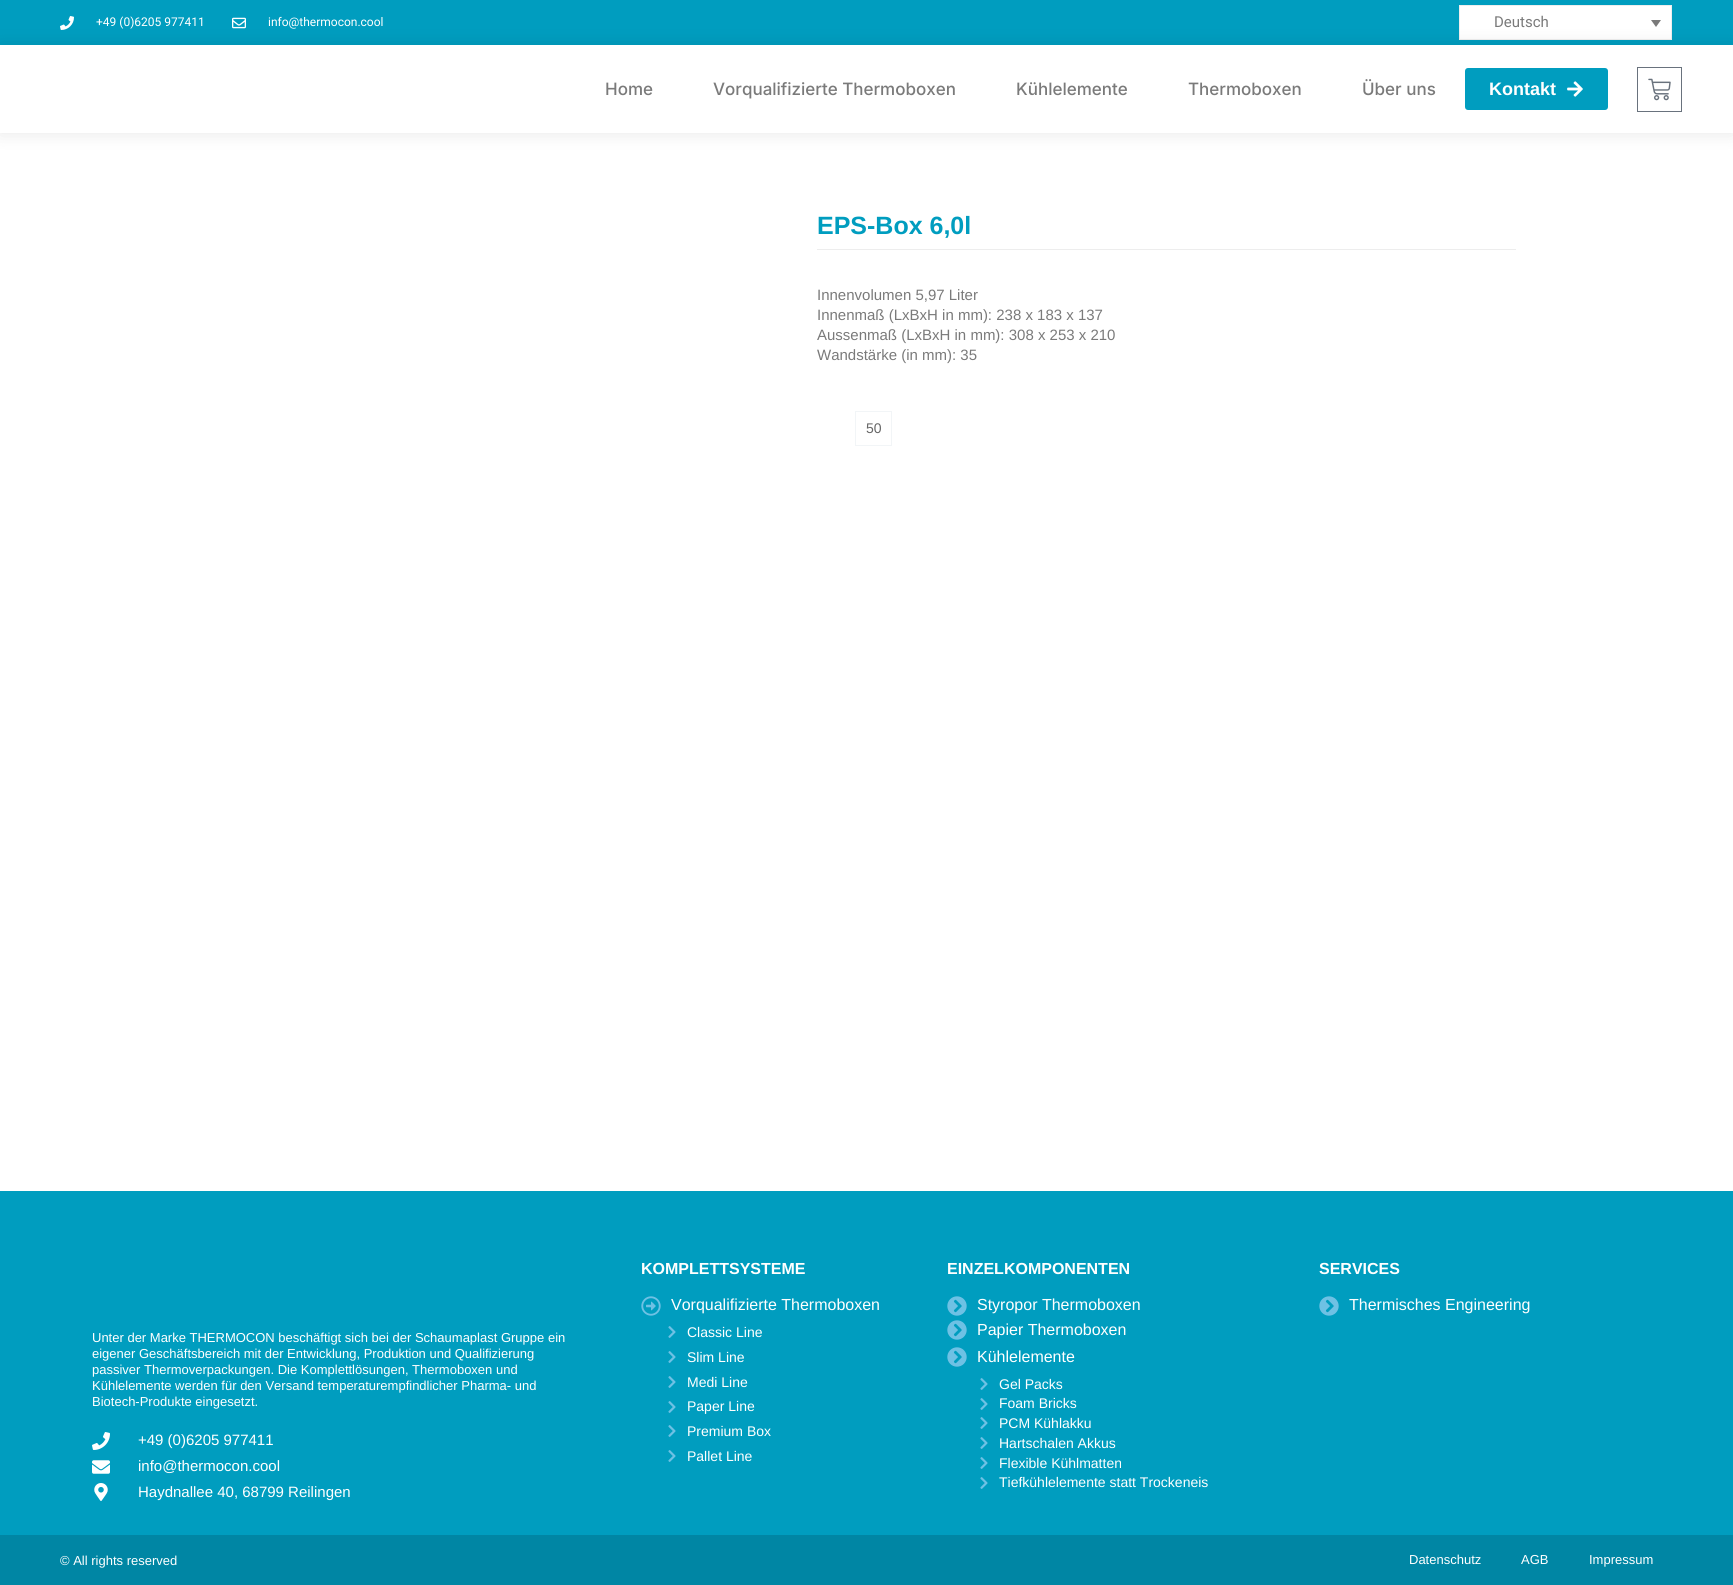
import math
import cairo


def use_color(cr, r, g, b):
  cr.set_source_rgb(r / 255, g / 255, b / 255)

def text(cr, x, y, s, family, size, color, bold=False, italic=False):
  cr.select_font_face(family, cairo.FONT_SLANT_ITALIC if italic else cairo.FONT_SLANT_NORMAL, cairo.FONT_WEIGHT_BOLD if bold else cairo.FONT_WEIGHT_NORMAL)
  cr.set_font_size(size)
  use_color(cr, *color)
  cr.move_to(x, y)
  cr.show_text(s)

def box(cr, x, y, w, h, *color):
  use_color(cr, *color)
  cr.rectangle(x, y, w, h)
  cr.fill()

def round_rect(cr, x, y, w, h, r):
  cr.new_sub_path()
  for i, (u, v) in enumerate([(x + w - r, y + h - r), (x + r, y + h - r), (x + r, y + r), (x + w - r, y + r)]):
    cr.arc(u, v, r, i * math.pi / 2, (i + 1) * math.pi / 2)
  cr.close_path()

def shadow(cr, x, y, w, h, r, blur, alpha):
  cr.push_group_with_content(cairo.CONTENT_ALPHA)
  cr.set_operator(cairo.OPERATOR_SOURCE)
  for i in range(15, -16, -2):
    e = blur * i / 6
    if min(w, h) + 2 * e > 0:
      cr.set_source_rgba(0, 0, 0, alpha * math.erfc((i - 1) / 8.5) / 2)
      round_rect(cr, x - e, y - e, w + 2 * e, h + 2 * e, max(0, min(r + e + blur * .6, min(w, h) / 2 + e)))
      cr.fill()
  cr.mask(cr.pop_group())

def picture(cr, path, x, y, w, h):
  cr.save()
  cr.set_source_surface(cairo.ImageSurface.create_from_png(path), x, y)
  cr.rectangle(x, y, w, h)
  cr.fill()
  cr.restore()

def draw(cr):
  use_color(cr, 255, 255, 255)
  cr.paint()
  box(cr, 0, 0, 1733, 45, 0, 157, 191)
  picture(cr, "img_01.png", 60, 16, 14, 14)
  picture(cr, "img_02.png", 232, 17, 14, 12)
  use_color(cr, 255, 255, 255)
  cr.rectangle(1459.5, 5.5, 212, 34)
  cr.fill_preserve()
  use_color(cr, 238, 238, 238)
  cr.set_line_width(1)
  cr.stroke()
  use_color(cr, 122, 122, 122)
  cr.new_path()
  cr.move_to(1651, 20)
  cr.line_to(1661, 20)
  cr.line_to(1656, 27)
  cr.close_path()
  cr.fill()
  cr.save()
  cr.set_fill_rule(cairo.FILL_RULE_EVEN_ODD)
  cr.new_path()
  cr.move_to(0, 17)
  cr.line_to(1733, 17)
  cr.line_to(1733, 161)
  cr.line_to(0, 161)
  cr.close_path()
  cr.move_to(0, 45)
  cr.line_to(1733, 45)
  cr.line_to(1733, 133)
  cr.line_to(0, 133)
  cr.close_path()
  cr.clip()
  use_color(cr, 0, 0, 0)
  shadow(cr, 0, 45, 1733, 88, 0, 9, 0.1)
  cr.restore()
  use_color(cr, 0, 157, 191)
  round_rect(cr, 1465, 68, 143, 42, 3)
  cr.fill()
  picture(cr, "img_03.png", 1567, 81, 16, 16)
  cr.rectangle(1637.5, 67.5, 44, 44)
  use_color(cr, 105, 114, 125)
  cr.stroke()
  picture(cr, "img_04.png", 1648, 78, 23, 23)
  box(cr, 817, 249, 699, 1, 237, 237, 237)
  cr.rectangle(855.5, 411.5, 36, 34)
  use_color(cr, 242, 245, 247)
  cr.stroke()
  box(cr, 0, 1191, 1733, 344, 0, 157, 191)
  picture(cr, "img_05.png", 641, 1296, 20, 20)
  picture(cr, "img_06.png", 668, 1326, 8, 12)
  picture(cr, "img_06.png", 668, 1351, 8, 12)
  picture(cr, "img_06.png", 668, 1376, 8, 12)
  picture(cr, "img_06.png", 668, 1401, 8, 12)
  picture(cr, "img_06.png", 668, 1425, 8, 12)
  picture(cr, "img_06.png", 668, 1450, 8, 12)
  picture(cr, "img_07.png", 947, 1296, 20, 20)
  picture(cr, "img_07.png", 947, 1320, 20, 20)
  picture(cr, "img_07.png", 947, 1347, 20, 20)
  picture(cr, "img_06.png", 980, 1378, 8, 12)
  picture(cr, "img_06.png", 980, 1398, 8, 12)
  picture(cr, "img_06.png", 980, 1417, 8, 12)
  picture(cr, "img_06.png", 980, 1437, 8, 12)
  picture(cr, "img_06.png", 980, 1457, 8, 12)
  picture(cr, "img_06.png", 980, 1477, 8, 12)
  picture(cr, "img_07.png", 1319, 1296, 20, 20)
  picture(cr, "img_08.png", 92, 1432, 18, 18)
  picture(cr, "img_09.png", 92, 1460, 18, 14)
  picture(cr, "img_10.png", 94, 1483, 14, 18)
  box(cr, 0, 1535, 1733, 50, 0, 134, 164)
  text(cr, 96, 26, "+49 (0)6205 977411", "Roboto", 12, (255, 255, 255))
  text(cr, 268, 26, "info@thermocon.cool", "Roboto", 12, (255, 255, 255))
  text(cr, 1494, 27, "Deutsch", "Roboto", 15, (122, 122, 122))
  text(cr, 605, 95, "Home", "Inter Medium", 17, (122, 122, 122))
  text(cr, 713, 95, "Vorqualifizierte Thermoboxen", "Inter Medium", 17, (122, 122, 122))
  text(cr, 1016, 95, "Kühlelemente", "Inter Medium", 17, (122, 122, 122))
  text(cr, 1188, 95, "Thermoboxen", "Inter Medium", 17, (122, 122, 122))
  text(cr, 1362, 95, "Über uns", "Inter Medium", 17, (122, 122, 122))
  text(cr, 1489, 95, "Kontakt", "Liberation Sans", 18, (255, 255, 255), bold=True)
  text(cr, 817, 234, "EPS-Box 6,0l", "Liberation Sans", 25, (0, 157, 191), bold=True)
  text(cr, 817, 300, "Innenvolumen 5,97 Liter", "Liberation Sans", 15, (122, 122, 122))
  text(cr, 817, 320, "Innenmaß (LxBxH in mm): 238 x 183 x 137", "Liberation Sans", 15, (122, 122, 122))
  text(cr, 817, 340, "Aussenmaß (LxBxH in mm): 308 x 253 x 210", "Liberation Sans", 15, (122, 122, 122))
  text(cr, 817, 360, "Wandstärke (in mm): 35", "Liberation Sans", 15, (122, 122, 122))
  text(cr, 866, 433, "50", "Liberation Sans", 14, (102, 102, 102))
  text(cr, 641, 1274, "KOMPLETTSYSTEME", "Liberation Sans", 16, (255, 255, 255), bold=True)
  text(cr, 671, 1310, "Vorqualifizierte Thermoboxen", "Liberation Sans", 16, (255, 255, 255))
  text(cr, 687, 1337, "Classic Line", "Liberation Sans", 14, (255, 255, 255))
  text(cr, 687, 1362, "Slim Line", "Liberation Sans", 14, (255, 255, 255))
  text(cr, 687, 1387, "Medi Line", "Liberation Sans", 14, (255, 255, 255))
  text(cr, 687, 1411, "Paper Line", "Liberation Sans", 14, (255, 255, 255))
  text(cr, 687, 1436, "Premium Box", "Liberation Sans", 14, (255, 255, 255))
  text(cr, 687, 1461, "Pallet Line", "Liberation Sans", 14, (255, 255, 255))
  text(cr, 947, 1274, "EINZELKOMPONENTEN", "Liberation Sans", 16, (255, 255, 255), bold=True)
  text(cr, 977, 1310, "Styropor Thermoboxen", "Liberation Sans", 16, (255, 255, 255))
  text(cr, 977, 1335, "Papier Thermoboxen", "Liberation Sans", 16, (255, 255, 255))
  text(cr, 977, 1362, "Kühlelemente", "Liberation Sans", 16, (255, 255, 255))
  text(cr, 999, 1389, "Gel Packs", "Liberation Sans", 14, (255, 255, 255))
  text(cr, 999, 1408, "Foam Bricks", "Liberation Sans", 14, (255, 255, 255))
  text(cr, 999, 1428, "PCM Kühlakku", "Liberation Sans", 14, (255, 255, 255))
  text(cr, 999, 1448, "Hartschalen Akkus", "Liberation Sans", 14, (255, 255, 255))
  text(cr, 999, 1468, "Flexible Kühlmatten", "Liberation Sans", 14, (255, 255, 255))
  text(cr, 999, 1487, "Tiefkühlelemente statt Trockeneis", "Liberation Sans", 14, (255, 255, 255))
  text(cr, 1319, 1274, "SERVICES", "Liberation Sans", 16, (255, 255, 255), bold=True)
  text(cr, 1349, 1310, "Thermisches Engineering", "Liberation Sans", 16, (255, 255, 255))
  text(cr, 92, 1342, "Unter der Marke THERMOCON beschäftigt sich bei der Schaumaplast Gruppe ein", "Liberation Sans", 13, (255, 255, 255))
  text(cr, 92, 1358, "eigener Geschäftsbereich mit der Entwicklung, Produktion und Qualifizierung", "Liberation Sans", 13, (255, 255, 255))
  text(cr, 92, 1374, "passiver Thermoverpackungen. Die Komplettlösungen, Thermoboxen und", "Liberation Sans", 13, (255, 255, 255))
  text(cr, 92, 1390, "Kühlelemente werden für den Versand temperaturempfindlicher Pharma- und", "Liberation Sans", 13, (255, 255, 255))
  text(cr, 92, 1406, "Biotech-Produkte eingesetzt.", "Liberation Sans", 13, (255, 255, 255))
  text(cr, 138, 1445, "+49 (0)6205 977411", "Liberation Sans", 15, (255, 255, 255))
  text(cr, 138, 1471, "info@thermocon.cool", "Liberation Sans", 15, (255, 255, 255))
  text(cr, 138, 1497, "Haydnallee 40, 68799 Reilingen", "Liberation Sans", 15, (255, 255, 255))
  text(cr, 60, 1565, "© All rights reserved", "Liberation Sans", 13, (255, 255, 255))
  text(cr, 1409, 1564, "Datenschutz", "Liberation Sans", 13, (255, 255, 255))
  text(cr, 1521, 1564, "AGB", "Liberation Sans", 13, (255, 255, 255))
  text(cr, 1589, 1564, "Impressum", "Liberation Sans", 13, (255, 255, 255))


surface = cairo.ImageSurface(cairo.FORMAT_RGB24, 1733, 1585)
cr = cairo.Context(surface)
options = cairo.FontOptions()
options.set_hint_metrics(cairo.HINT_METRICS_OFF)
options.set_hint_style(cairo.HINT_STYLE_NONE)
cr.set_font_options(options)
cr.set_miter_limit(4)
draw(cr)
surface.write_to_png("out.png")
